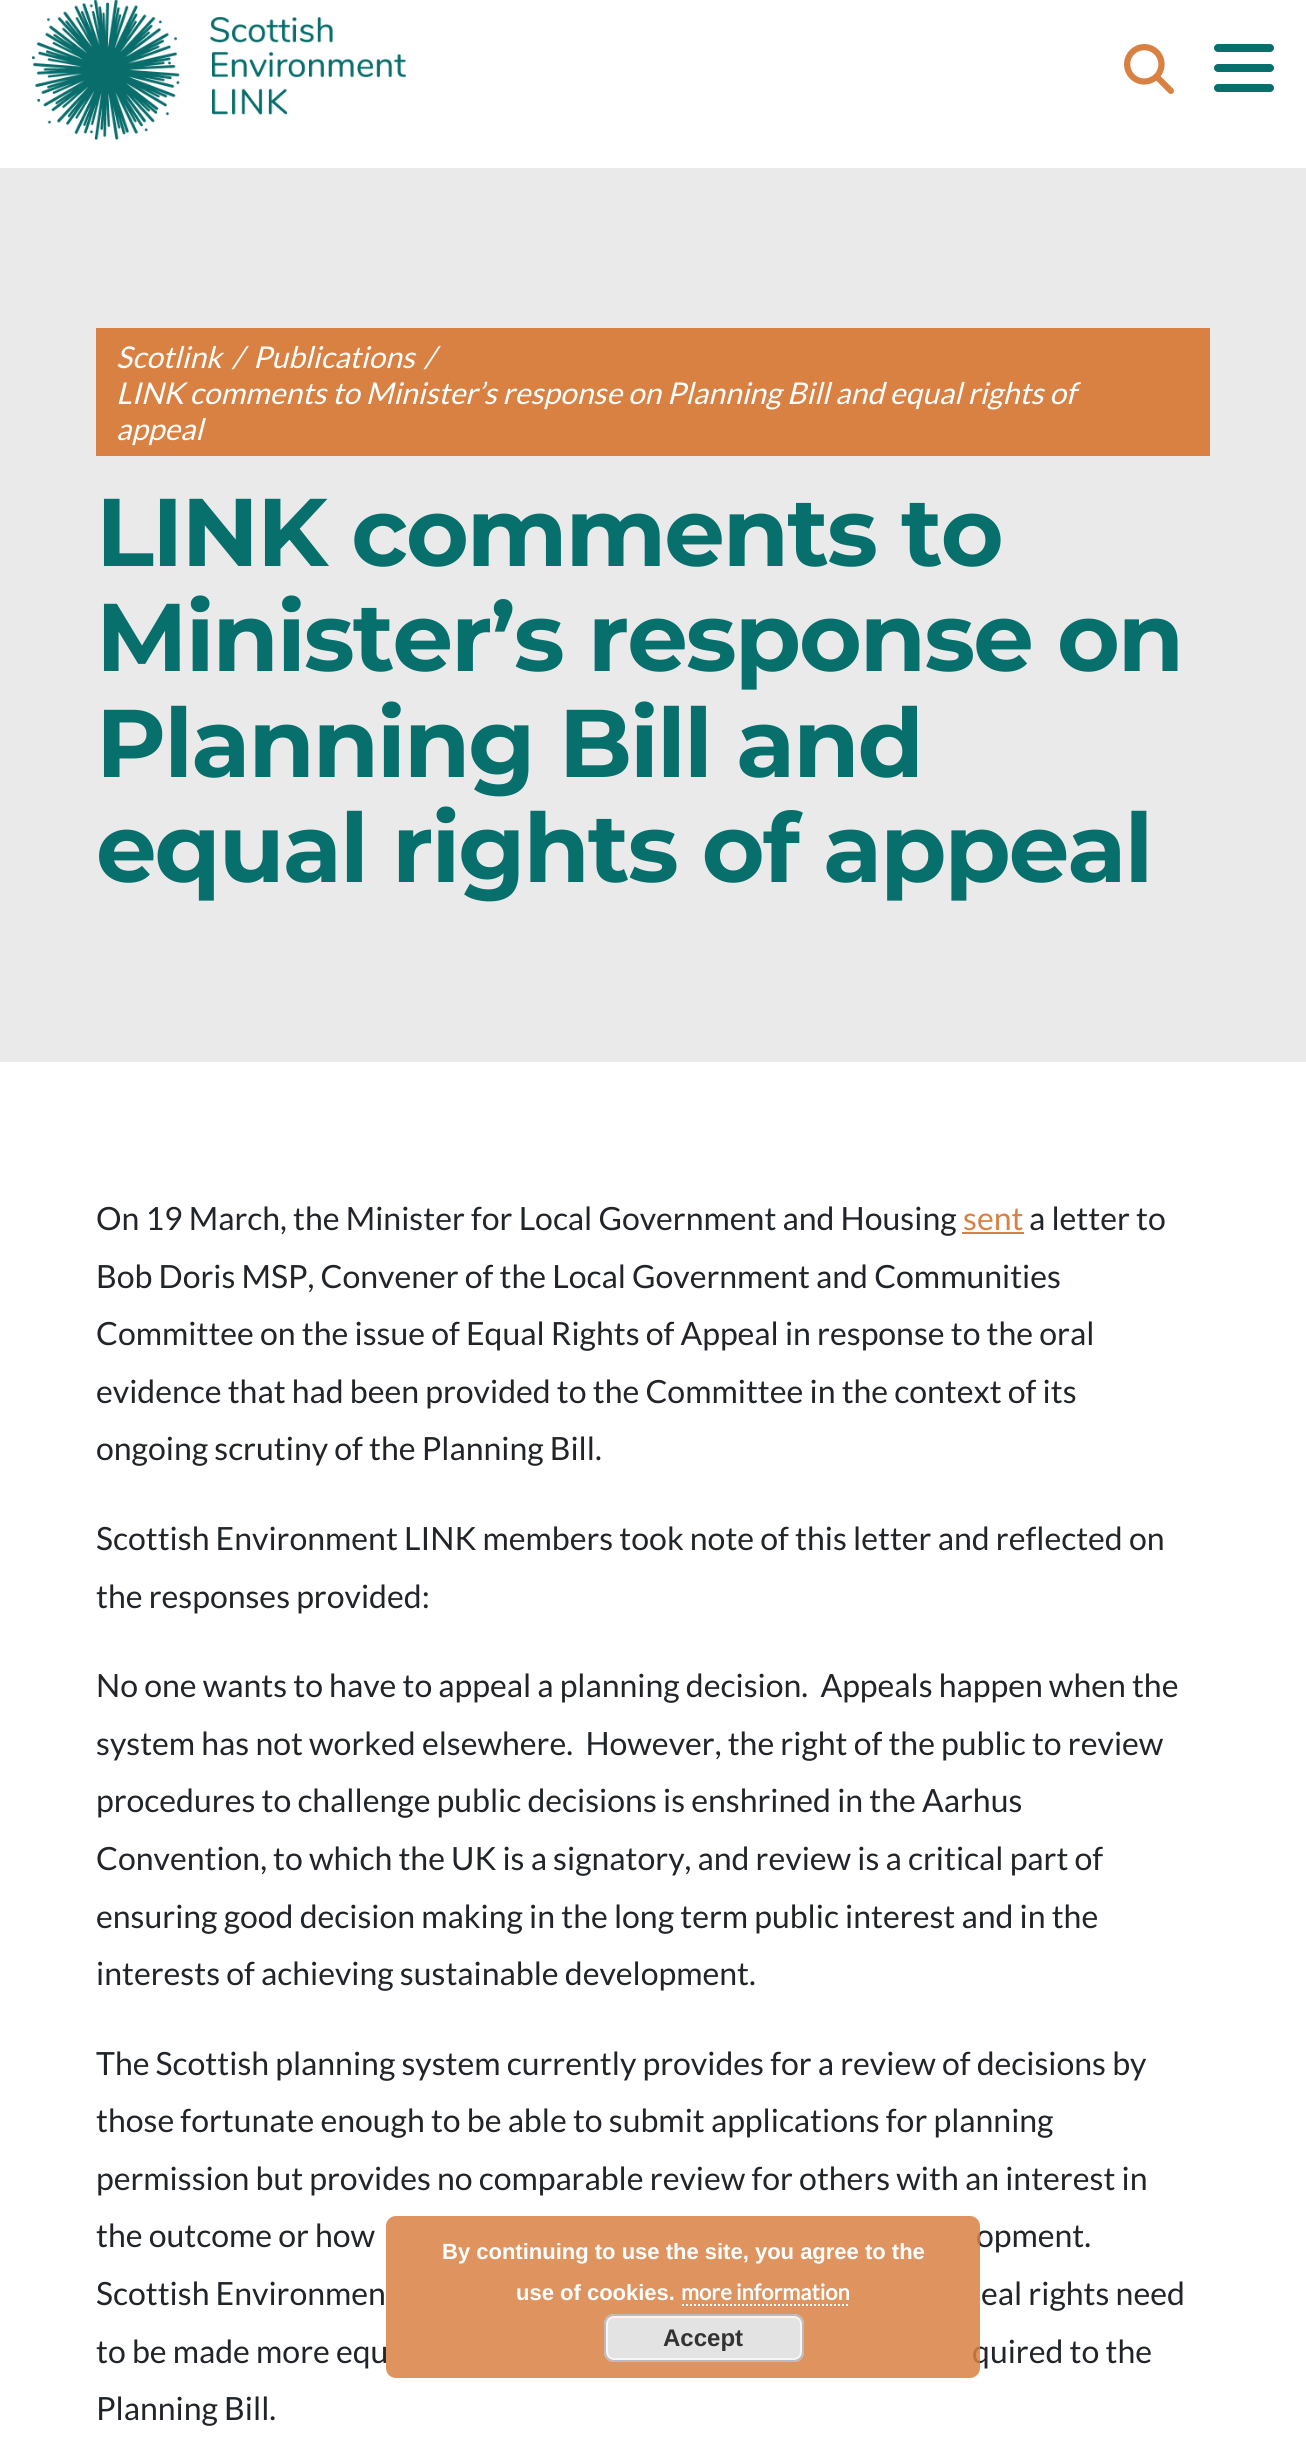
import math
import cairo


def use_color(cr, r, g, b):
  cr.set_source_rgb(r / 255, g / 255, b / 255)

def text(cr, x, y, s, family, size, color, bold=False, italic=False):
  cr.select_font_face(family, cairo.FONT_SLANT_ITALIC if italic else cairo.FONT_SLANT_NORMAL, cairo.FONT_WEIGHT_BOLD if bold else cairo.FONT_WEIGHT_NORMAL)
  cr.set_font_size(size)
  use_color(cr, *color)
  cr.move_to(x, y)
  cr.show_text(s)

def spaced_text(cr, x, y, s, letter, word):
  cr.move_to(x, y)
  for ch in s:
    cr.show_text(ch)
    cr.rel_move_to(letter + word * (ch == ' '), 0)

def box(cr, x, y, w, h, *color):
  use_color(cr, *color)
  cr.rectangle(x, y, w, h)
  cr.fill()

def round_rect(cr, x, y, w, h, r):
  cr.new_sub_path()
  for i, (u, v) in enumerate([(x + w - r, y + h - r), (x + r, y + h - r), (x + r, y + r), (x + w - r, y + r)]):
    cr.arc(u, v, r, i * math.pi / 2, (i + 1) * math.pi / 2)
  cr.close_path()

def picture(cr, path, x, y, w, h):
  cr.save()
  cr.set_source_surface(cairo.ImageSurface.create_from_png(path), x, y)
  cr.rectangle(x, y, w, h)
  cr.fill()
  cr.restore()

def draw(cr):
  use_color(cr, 255, 255, 255)
  cr.paint()
  picture(cr, "img_01.png", 32, 0, 374, 140)
  picture(cr, "img_02.png", 1124, 44, 50, 50)
  use_color(cr, 7, 111, 108)
  round_rect(cr, 1214, 64, 60, 8, 4)
  cr.fill()
  round_rect(cr, 1214, 44, 60, 8, 4)
  cr.fill()
  round_rect(cr, 1214, 84, 60, 8, 4)
  cr.fill()
  box(cr, 0, 168, 1306, 894, 234, 234, 234)
  box(cr, 96, 328, 1114, 128, 217, 129, 67)
  box(cr, 962, 1232, 62, 2, 217, 129, 67)
  text(cr, 116, 368, "Scotlink", "Lato", 30, (255, 255, 255), italic=True)
  text(cr, 232, 368, "/", "Lato", 30, (255, 255, 255), italic=True)
  text(cr, 253, 368, "Publications", "Lato", 30, (255, 255, 255), italic=True)
  text(cr, 424, 368, "/", "Lato", 30, (255, 255, 255), italic=True)
  text(cr, 116, 404, "LINK comments to Minister’s response on Planning Bill and equal rights of", "Lato", 30, (255, 255, 255), italic=True)
  text(cr, 116, 440, "appeal", "Lato", 30, (255, 255, 255), italic=True)
  cr.select_font_face("Montserrat", cairo.FONT_SLANT_NORMAL, cairo.FONT_WEIGHT_BOLD)
  cr.set_font_size(96)
  use_color(cr, 7, 111, 108)
  spaced_text(cr, 96, 566, "LINK comments to", -2, 0)
  spaced_text(cr, 96, 671, "Minister’s response on", -2, 0)
  spaced_text(cr, 96, 777, "Planning Bill and", -2, 0)
  spaced_text(cr, 96, 882, "equal rights of appeal", -2, 0)
  text(cr, 96, 1230, "On 19 March, the Minister for Local Government and Housing", "Lato", 32, (33, 37, 41))
  text(cr, 963, 1230, "sent", "Lato", 32, (217, 129, 67))
  text(cr, 1029, 1230, "a letter to", "Lato", 32, (33, 37, 41))
  text(cr, 96, 1288, "Bob Doris MSP, Convener of the Local Government and Communities", "Lato", 32, (33, 37, 41))
  text(cr, 96, 1345, "Committee on the issue of Equal Rights of Appeal in response to the oral", "Lato", 32, (33, 37, 41))
  text(cr, 96, 1403, "evidence that had been provided to the Committee in the context of its", "Lato", 32, (33, 37, 41))
  text(cr, 96, 1460, "ongoing scrutiny of the Planning Bill.", "Lato", 32, (33, 37, 41))
  text(cr, 96, 1550, "Scottish Environment LINK members took note of this letter and reflected on", "Lato", 32, (33, 37, 41))
  text(cr, 96, 1608, "the responses provided:", "Lato", 32, (33, 37, 41))
  text(cr, 96, 1697, "No one wants to have to appeal a planning decision.  Appeals happen when the", "Lato", 32, (33, 37, 41))
  text(cr, 96, 1755, "system has not worked elsewhere.  However, the right of the public to review", "Lato", 32, (33, 37, 41))
  text(cr, 96, 1812, "procedures to challenge public decisions is enshrined in the Aarhus", "Lato", 32, (33, 37, 41))
  text(cr, 96, 1870, "Convention, to which the UK is a signatory, and review is a critical part of", "Lato", 32, (33, 37, 41))
  text(cr, 96, 1928, "ensuring good decision making in the long term public interest and in the", "Lato", 32, (33, 37, 41))
  text(cr, 96, 1985, "interests of achieving sustainable development.", "Lato", 32, (33, 37, 41))
  text(cr, 96, 2075, "The Scottish planning system currently provides for a review of decisions by", "Lato", 32, (33, 37, 41))
  text(cr, 96, 2132, "those fortunate enough to be able to submit applications for planning", "Lato", 32, (33, 37, 41))
  text(cr, 96, 2190, "permission but provides no comparable review for others with an interest in", "Lato", 32, (33, 37, 41))
  text(cr, 96, 2247, "the outcome or how", "Lato", 32, (33, 37, 41))
  text(cr, 976, 2247, "opment.", "Lato", 32, (33, 37, 41))
  text(cr, 96, 2305, "Scottish Environmen", "Lato", 32, (33, 37, 41))
  text(cr, 981, 2305, "eal rights need", "Lato", 32, (33, 37, 41))
  text(cr, 96, 2363, "to be made more equ", "Lato", 32, (33, 37, 41))
  text(cr, 972, 2363, "quired to the", "Lato", 32, (33, 37, 41))
  text(cr, 96, 2420, "Planning Bill.", "Lato", 32, (33, 37, 41))
  cr.set_source_rgba(0.851, 0.506, 0.263, 0.85)
  round_rect(cr, 386, 2216, 594, 162, 10)
  cr.fill()
  text(cr, 442, 2259, "By continuing to use the site, you agree to the", "Liberation Sans", 22, (255, 255, 255), bold=True)
  text(cr, 516, 2300, "use of cookies.", "Liberation Sans", 22, (255, 255, 255), bold=True)
  text(cr, 681, 2300, "more information", "Lato", 22, (255, 255, 255), bold=True)
  cr.new_path()
  cr.move_to(682, 2305)
  cr.line_to(850, 2305)
  cr.set_dash([2, 2])
  cr.stroke()
  use_color(cr, 227, 227, 227)
  round_rect(cr, 604, 2314, 200, 48, 10)
  cr.fill()
  round_rect(cr, 607, 2317, 194, 42, 7)
  use_color(cr, 246, 246, 246)
  cr.set_dash([])
  cr.stroke()
  round_rect(cr, 605, 2315, 198, 46, 9)
  use_color(cr, 187, 187, 187)
  cr.stroke()
  text(cr, 663, 2346, "Accept", "Liberation Sans", 24, (51, 51, 51), bold=True)


surface = cairo.ImageSurface(cairo.FORMAT_RGB24, 1306, 2437)
cr = cairo.Context(surface)
options = cairo.FontOptions()
options.set_hint_metrics(cairo.HINT_METRICS_OFF)
options.set_hint_style(cairo.HINT_STYLE_NONE)
cr.set_font_options(options)
cr.set_miter_limit(4)
draw(cr)
surface.write_to_png("out.png")
